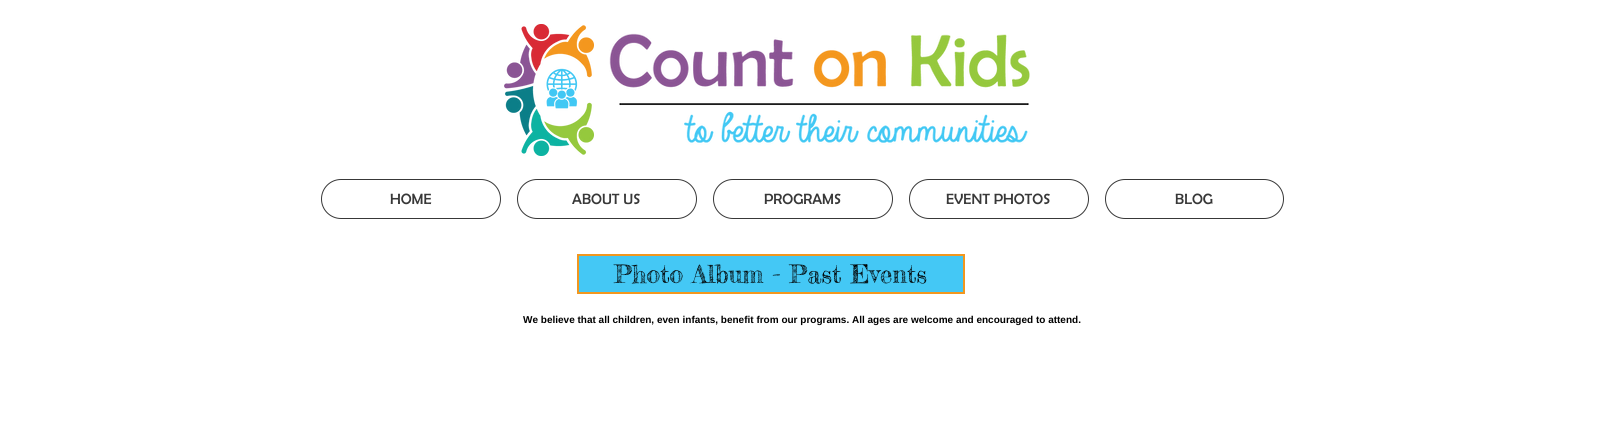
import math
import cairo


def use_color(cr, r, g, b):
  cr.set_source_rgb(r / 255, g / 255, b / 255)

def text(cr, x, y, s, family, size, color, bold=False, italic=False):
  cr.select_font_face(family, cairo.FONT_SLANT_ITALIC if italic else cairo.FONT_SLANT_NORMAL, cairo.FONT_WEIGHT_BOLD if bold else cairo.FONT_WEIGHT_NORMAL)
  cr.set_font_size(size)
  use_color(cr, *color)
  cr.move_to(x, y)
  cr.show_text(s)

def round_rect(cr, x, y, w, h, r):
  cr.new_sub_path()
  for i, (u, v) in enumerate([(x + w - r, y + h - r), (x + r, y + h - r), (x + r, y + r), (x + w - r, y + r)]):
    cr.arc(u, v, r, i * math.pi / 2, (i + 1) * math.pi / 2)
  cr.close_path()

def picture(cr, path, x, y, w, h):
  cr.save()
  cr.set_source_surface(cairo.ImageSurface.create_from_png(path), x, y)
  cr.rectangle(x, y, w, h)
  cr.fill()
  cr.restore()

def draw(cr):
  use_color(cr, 255, 255, 255)
  cr.paint()
  picture(cr, "img_01.png", 504, 24, 90, 132)
  picture(cr, "img_02.png", 609, 33, 421, 112)
  round_rect(cr, 321.5, 179.5, 179, 39, 19.5)
  use_color(cr, 56, 56, 56)
  cr.set_line_width(1)
  cr.stroke()
  round_rect(cr, 517.5, 179.5, 179, 39, 19.5)
  cr.stroke()
  round_rect(cr, 713.5, 179.5, 179, 39, 19.5)
  cr.stroke()
  round_rect(cr, 909.5, 179.5, 179, 39, 19.5)
  cr.stroke()
  round_rect(cr, 1105.5, 179.5, 178, 39, 19.5)
  cr.stroke()
  use_color(cr, 68, 200, 245)
  cr.rectangle(578, 255, 386, 38)
  cr.fill_preserve()
  use_color(cr, 242, 151, 31)
  cr.set_line_width(2)
  cr.stroke()
  text(cr, 390, 204, "HOME", "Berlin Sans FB", 15, (56, 56, 56))
  text(cr, 572, 204, "ABOUT US", "Berlin Sans FB", 15, (56, 56, 56))
  text(cr, 764, 204, "PROGRAMS", "Berlin Sans FB", 15, (56, 56, 56))
  text(cr, 946, 204, "EVENT PHOTOS", "Berlin Sans FB", 15, (56, 56, 56))
  text(cr, 1175, 204, "BLOG", "Berlin Sans FB", 15, (56, 56, 56))
  text(cr, 614, 283, "Photo Album - Past Events", "Fredericka the Great", 25, (0, 0, 0))
  text(cr, 523, 323, "We believe that all children, even infants, benefit from our programs. All ages are welcome and encouraged to attend.", "Liberation Sans", 10, (0, 0, 0), bold=True)


surface = cairo.ImageSurface(cairo.FORMAT_RGB24, 1605, 436)
cr = cairo.Context(surface)
options = cairo.FontOptions()
options.set_hint_metrics(cairo.HINT_METRICS_OFF)
options.set_hint_style(cairo.HINT_STYLE_NONE)
cr.set_font_options(options)
cr.set_miter_limit(4)
draw(cr)
surface.write_to_png("out.png")
